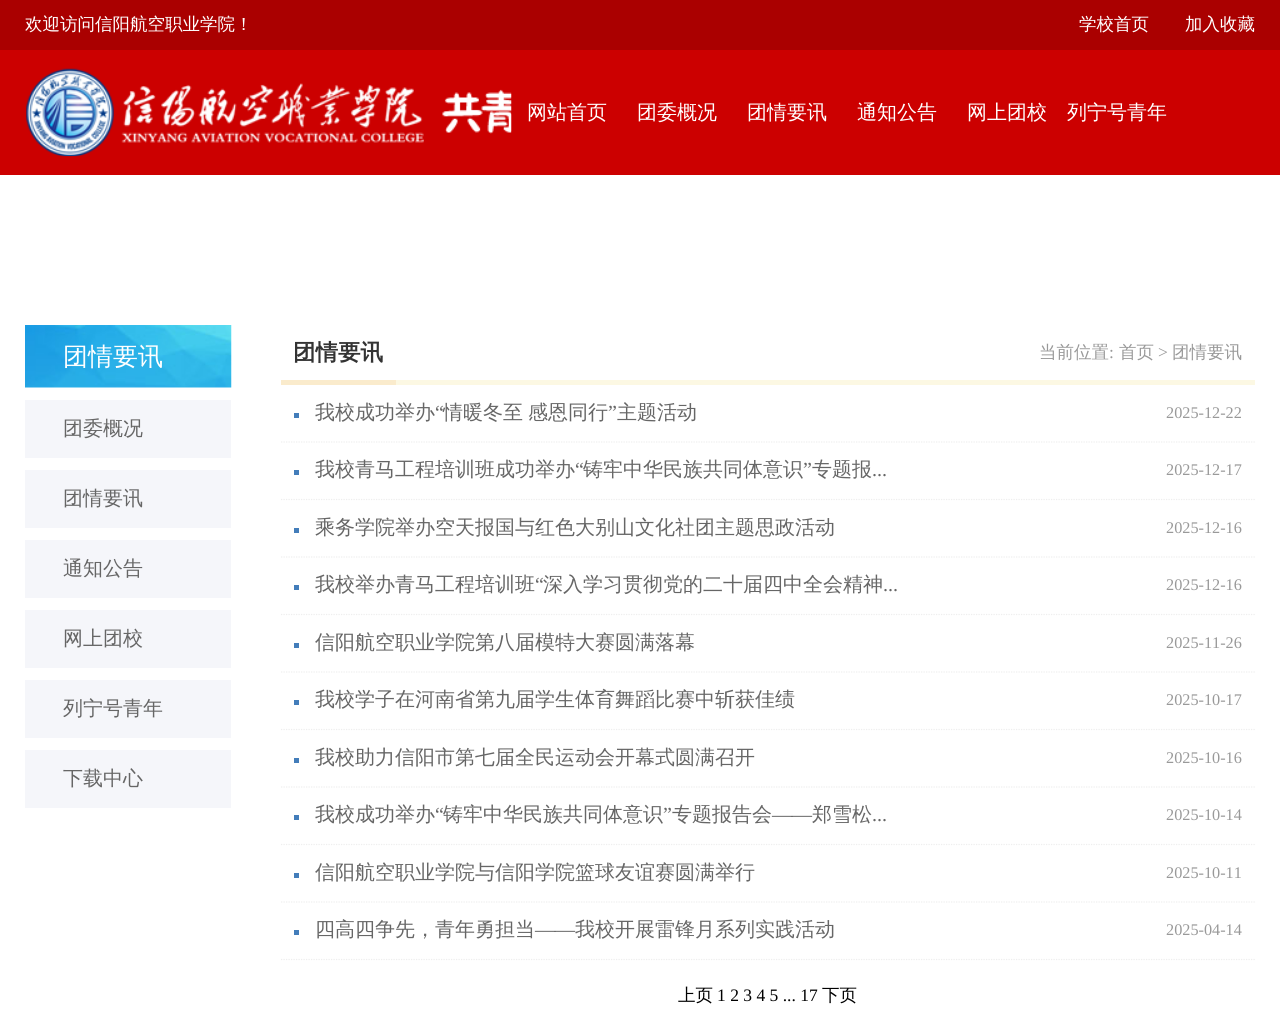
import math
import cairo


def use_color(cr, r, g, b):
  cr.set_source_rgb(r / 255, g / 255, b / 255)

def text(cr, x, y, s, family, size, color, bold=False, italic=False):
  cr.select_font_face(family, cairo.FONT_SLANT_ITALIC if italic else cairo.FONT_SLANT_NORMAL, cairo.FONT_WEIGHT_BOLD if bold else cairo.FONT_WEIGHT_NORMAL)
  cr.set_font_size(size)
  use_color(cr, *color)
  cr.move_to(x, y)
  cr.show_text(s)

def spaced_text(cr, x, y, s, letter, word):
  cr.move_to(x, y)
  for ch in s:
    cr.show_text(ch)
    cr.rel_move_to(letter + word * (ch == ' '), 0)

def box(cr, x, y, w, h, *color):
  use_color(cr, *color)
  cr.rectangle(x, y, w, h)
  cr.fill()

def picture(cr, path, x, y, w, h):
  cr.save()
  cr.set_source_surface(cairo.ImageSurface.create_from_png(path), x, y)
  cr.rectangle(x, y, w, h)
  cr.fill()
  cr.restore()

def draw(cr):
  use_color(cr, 255, 255, 255)
  cr.paint()
  box(cr, 0, 50, 1280, 125, 204, 0, 0)
  box(cr, 0, 0, 1280, 50, 170, 0, 0)
  picture(cr, "img_01.png", 442, 89, 70, 45)
  picture(cr, "img_02.png", 26, 68, 398, 89)
  picture(cr, "img_03.png", 25, 325, 207, 63)
  box(cr, 25, 400, 206, 58, 245, 246, 250)
  box(cr, 25, 470, 206, 58, 245, 246, 250)
  box(cr, 25, 540, 206, 58, 245, 246, 250)
  box(cr, 25, 610, 206, 58, 245, 246, 250)
  box(cr, 25, 680, 206, 58, 245, 246, 250)
  box(cr, 25, 750, 206, 58, 245, 246, 250)
  box(cr, 396, 380, 859, 5, 252, 248, 227)
  box(cr, 281, 380, 115, 5, 250, 235, 204)
  cr.new_path()
  cr.move_to(281, 442)
  cr.line_to(1255, 442)
  use_color(cr, 238, 238, 238)
  cr.set_line_width(1.2)
  cr.set_dash([1.25, 1.25])
  cr.stroke()
  box(cr, 294, 413, 5, 5, 67, 125, 186)
  cr.new_path()
  cr.move_to(281, 499.5)
  cr.line_to(1255, 499.5)
  use_color(cr, 238, 238, 238)
  cr.stroke()
  box(cr, 294, 470, 5, 5, 67, 125, 186)
  cr.new_path()
  cr.move_to(281, 557)
  cr.line_to(1255, 557)
  use_color(cr, 238, 238, 238)
  cr.stroke()
  box(cr, 294, 528, 5, 5, 67, 125, 186)
  cr.new_path()
  cr.move_to(281, 614.5)
  cr.line_to(1255, 614.5)
  use_color(cr, 238, 238, 238)
  cr.stroke()
  box(cr, 294, 585, 5, 5, 67, 125, 186)
  cr.new_path()
  cr.move_to(281, 672)
  cr.line_to(1255, 672)
  use_color(cr, 238, 238, 238)
  cr.stroke()
  box(cr, 294, 643, 5, 5, 67, 125, 186)
  cr.new_path()
  cr.move_to(281, 729.5)
  cr.line_to(1255, 729.5)
  use_color(cr, 238, 238, 238)
  cr.stroke()
  box(cr, 294, 700, 5, 5, 67, 125, 186)
  cr.new_path()
  cr.move_to(281, 787)
  cr.line_to(1255, 787)
  use_color(cr, 238, 238, 238)
  cr.stroke()
  box(cr, 294, 758, 5, 5, 67, 125, 186)
  cr.new_path()
  cr.move_to(281, 844.5)
  cr.line_to(1255, 844.5)
  use_color(cr, 238, 238, 238)
  cr.stroke()
  box(cr, 294, 815, 5, 5, 67, 125, 186)
  cr.new_path()
  cr.move_to(281, 902)
  cr.line_to(1255, 902)
  use_color(cr, 238, 238, 238)
  cr.stroke()
  box(cr, 294, 873, 5, 5, 67, 125, 186)
  cr.new_path()
  cr.move_to(281, 959.5)
  cr.line_to(1255, 959.5)
  use_color(cr, 238, 238, 238)
  cr.stroke()
  box(cr, 294, 930, 5, 5, 67, 125, 186)
  text(cr, 25, 30, "欢迎访问信阳航空职业学院！", "WenQuanYi Zen Hei Medium", 17.5, (255, 255, 255))
  text(cr, 1079, 30, "学校首页", "WenQuanYi Zen Hei Medium", 17.5, (255, 255, 255))
  text(cr, 1185, 30, "加入收藏", "WenQuanYi Zen Hei Medium", 17.5, (255, 255, 255))
  text(cr, 527, 119, "网站首页", "WenQuanYi Zen Hei Medium", 20, (255, 255, 255))
  text(cr, 637, 119, "团委概况", "WenQuanYi Zen Hei Medium", 20, (255, 255, 255))
  text(cr, 747, 119, "团情要讯", "WenQuanYi Zen Hei Medium", 20, (255, 255, 255))
  text(cr, 857, 119, "通知公告", "WenQuanYi Zen Hei Medium", 20, (255, 255, 255))
  text(cr, 967, 119, "网上团校", "WenQuanYi Zen Hei Medium", 20, (255, 255, 255))
  text(cr, 1067, 119, "列宁号青年", "WenQuanYi Zen Hei Medium", 20, (255, 255, 255))
  text(cr, 63, 365, "团情要讯", "WenQuanYi Zen Hei Medium", 25, (255, 255, 255))
  text(cr, 63, 435, "团委概况", "WenQuanYi Zen Hei Medium", 20, (102, 102, 102))
  text(cr, 63, 505, "团情要讯", "WenQuanYi Zen Hei Medium", 20, (102, 102, 102))
  text(cr, 63, 575, "通知公告", "WenQuanYi Zen Hei Medium", 20, (102, 102, 102))
  text(cr, 63, 645, "网上团校", "WenQuanYi Zen Hei Medium", 20, (102, 102, 102))
  text(cr, 63, 715, "列宁号青年", "WenQuanYi Zen Hei Medium", 20, (102, 102, 102))
  text(cr, 63, 785, "下载中心", "WenQuanYi Zen Hei Medium", 20, (102, 102, 102))
  text(cr, 293, 360, "团情要讯", "WenQuanYi Zen Hei", 22.5, (51, 51, 51), bold=True)
  text(cr, 1039, 358, "当前位置", "WenQuanYi Zen Hei Medium", 17.5, (153, 153, 153))
  text(cr, 1109, 358, ":", "Liberation Serif", 17.5, (153, 153, 153))
  text(cr, 1119, 358, "首页", "WenQuanYi Zen Hei Medium", 17.5, (153, 153, 153))
  text(cr, 1158, 358, ">", "Liberation Serif", 17.5, (153, 153, 153))
  text(cr, 1172, 358, "团情要讯", "WenQuanYi Zen Hei Medium", 17.5, (153, 153, 153))
  text(cr, 315, 419, "我校成功举办", "WenQuanYi Zen Hei Medium", 20, (102, 102, 102))
  text(cr, 435, 419, "“", "Liberation Serif", 20, (102, 102, 102))
  cr.select_font_face("WenQuanYi Zen Hei Medium")
  spaced_text(cr, 443, 419, "情暖冬至 感恩同行", 0, -1)
  text(cr, 608, 419, "”", "Liberation Serif", 20, (102, 102, 102))
  text(cr, 617, 419, "主题活动", "WenQuanYi Zen Hei Medium", 20, (102, 102, 102))
  text(cr, 1166, 418, "2025-12-22", "Liberation Serif", 16.25, (153, 153, 153))
  text(cr, 315, 476, "我校青马工程培训班成功举办", "WenQuanYi Zen Hei Medium", 20, (102, 102, 102))
  text(cr, 575, 476, "“", "Liberation Serif", 20, (102, 102, 102))
  text(cr, 583, 476, "铸牢中华民族共同体意识", "WenQuanYi Zen Hei Medium", 20, (102, 102, 102))
  text(cr, 803, 476, "”", "Liberation Serif", 20, (102, 102, 102))
  text(cr, 812, 476, "专题报", "WenQuanYi Zen Hei Medium", 20, (102, 102, 102))
  text(cr, 872, 476, "...", "Liberation Serif", 20, (102, 102, 102))
  text(cr, 1166, 475, "2025-12-17", "Liberation Serif", 16.25, (153, 153, 153))
  text(cr, 315, 534, "乘务学院举办空天报国与红色大别山文化社团主题思政活动", "WenQuanYi Zen Hei Medium", 20, (102, 102, 102))
  text(cr, 1166, 533, "2025-12-16", "Liberation Serif", 16.25, (153, 153, 153))
  text(cr, 315, 591, "我校举办青马工程培训班", "WenQuanYi Zen Hei Medium", 20, (102, 102, 102))
  text(cr, 535, 591, "“", "Liberation Serif", 20, (102, 102, 102))
  text(cr, 543, 591, "深入学习贯彻党的二十届四中全会精神", "WenQuanYi Zen Hei Medium", 20, (102, 102, 102))
  text(cr, 883, 591, "...", "Liberation Serif", 20, (102, 102, 102))
  text(cr, 1166, 590, "2025-12-16", "Liberation Serif", 16.25, (153, 153, 153))
  text(cr, 315, 649, "信阳航空职业学院第八届模特大赛圆满落幕", "WenQuanYi Zen Hei Medium", 20, (102, 102, 102))
  text(cr, 1166, 648, "2025-11-26", "Liberation Serif", 16.25, (153, 153, 153))
  text(cr, 315, 706, "我校学子在河南省第九届学生体育舞蹈比赛中斩获佳绩", "WenQuanYi Zen Hei Medium", 20, (102, 102, 102))
  text(cr, 1166, 705, "2025-10-17", "Liberation Serif", 16.25, (153, 153, 153))
  text(cr, 315, 764, "我校助力信阳市第七届全民运动会开幕式圆满召开", "WenQuanYi Zen Hei Medium", 20, (102, 102, 102))
  text(cr, 1166, 763, "2025-10-16", "Liberation Serif", 16.25, (153, 153, 153))
  text(cr, 315, 821, "我校成功举办", "WenQuanYi Zen Hei Medium", 20, (102, 102, 102))
  text(cr, 435, 821, "“", "Liberation Serif", 20, (102, 102, 102))
  text(cr, 443, 821, "铸牢中华民族共同体意识", "WenQuanYi Zen Hei Medium", 20, (102, 102, 102))
  text(cr, 663, 821, "”", "Liberation Serif", 20, (102, 102, 102))
  text(cr, 672, 821, "专题报告会", "WenQuanYi Zen Hei Medium", 20, (102, 102, 102))
  text(cr, 772, 821, "——", "Liberation Serif", 20, (102, 102, 102))
  text(cr, 812, 821, "郑雪松", "WenQuanYi Zen Hei Medium", 20, (102, 102, 102))
  text(cr, 1166, 820, "2025-10-14", "Liberation Serif", 16.25, (153, 153, 153))
  text(cr, 872, 821, "...", "Liberation Serif", 20, (102, 102, 102))
  text(cr, 315, 879, "信阳航空职业学院与信阳学院篮球友谊赛圆满举行", "WenQuanYi Zen Hei Medium", 20, (102, 102, 102))
  text(cr, 1166, 878, "2025-10-11", "Liberation Serif", 16.25, (153, 153, 153))
  text(cr, 315, 936, "四高四争先，青年勇担当", "WenQuanYi Zen Hei Medium", 20, (102, 102, 102))
  text(cr, 535, 936, "——", "Liberation Serif", 20, (102, 102, 102))
  text(cr, 575, 936, "我校开展雷锋月系列实践活动", "WenQuanYi Zen Hei Medium", 20, (102, 102, 102))
  text(cr, 1166, 935, "2025-04-14", "Liberation Serif", 16.25, (153, 153, 153))
  text(cr, 678, 1001, "上页", "WenQuanYi Zen Hei Medium", 17.5, (0, 0, 0))
  text(cr, 717, 1001, "1 2 3 4 5 ... 17", "Liberation Serif", 17.5, (0, 0, 0))
  text(cr, 822, 1001, "下页", "WenQuanYi Zen Hei Medium", 17.5, (0, 0, 0))


surface = cairo.ImageSurface(cairo.FORMAT_RGB24, 1280, 1009)
cr = cairo.Context(surface)
options = cairo.FontOptions()
options.set_hint_metrics(cairo.HINT_METRICS_OFF)
options.set_hint_style(cairo.HINT_STYLE_NONE)
cr.set_font_options(options)
cr.set_miter_limit(4)
draw(cr)
surface.write_to_png("out.png")
